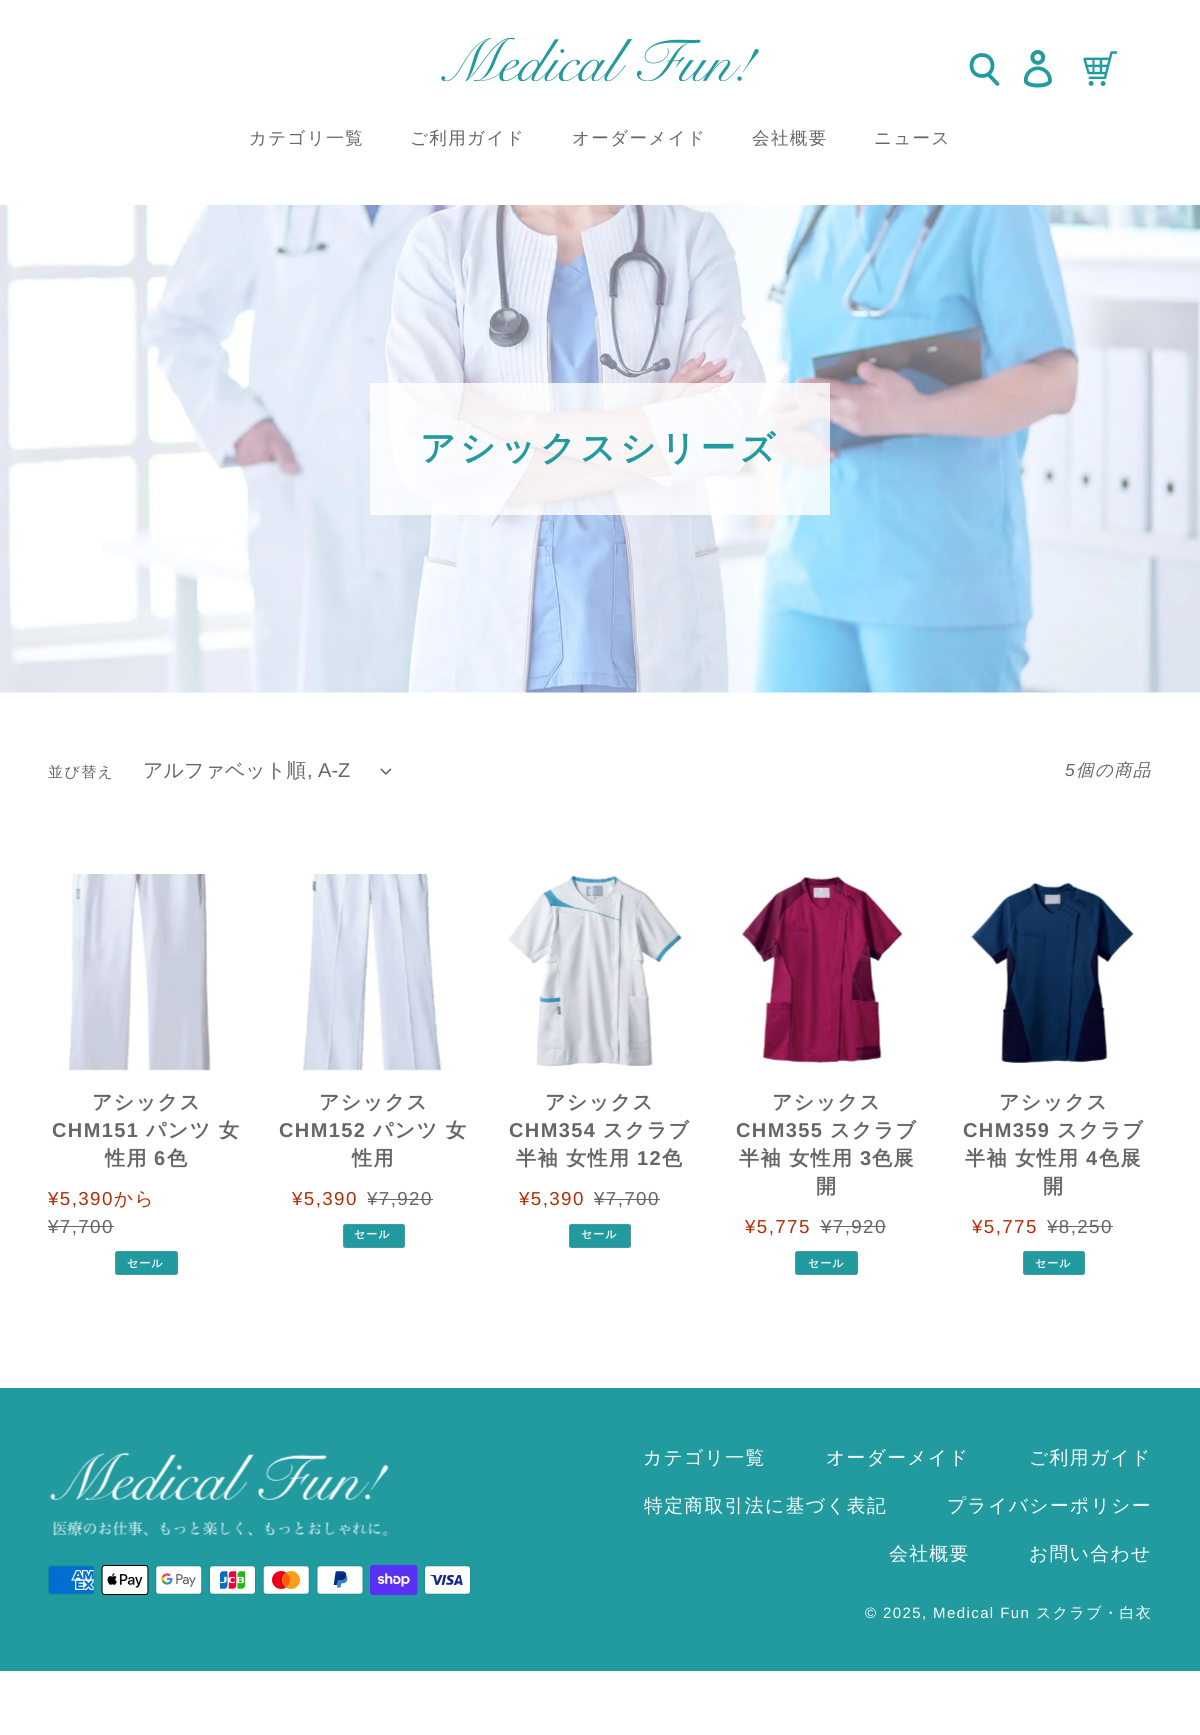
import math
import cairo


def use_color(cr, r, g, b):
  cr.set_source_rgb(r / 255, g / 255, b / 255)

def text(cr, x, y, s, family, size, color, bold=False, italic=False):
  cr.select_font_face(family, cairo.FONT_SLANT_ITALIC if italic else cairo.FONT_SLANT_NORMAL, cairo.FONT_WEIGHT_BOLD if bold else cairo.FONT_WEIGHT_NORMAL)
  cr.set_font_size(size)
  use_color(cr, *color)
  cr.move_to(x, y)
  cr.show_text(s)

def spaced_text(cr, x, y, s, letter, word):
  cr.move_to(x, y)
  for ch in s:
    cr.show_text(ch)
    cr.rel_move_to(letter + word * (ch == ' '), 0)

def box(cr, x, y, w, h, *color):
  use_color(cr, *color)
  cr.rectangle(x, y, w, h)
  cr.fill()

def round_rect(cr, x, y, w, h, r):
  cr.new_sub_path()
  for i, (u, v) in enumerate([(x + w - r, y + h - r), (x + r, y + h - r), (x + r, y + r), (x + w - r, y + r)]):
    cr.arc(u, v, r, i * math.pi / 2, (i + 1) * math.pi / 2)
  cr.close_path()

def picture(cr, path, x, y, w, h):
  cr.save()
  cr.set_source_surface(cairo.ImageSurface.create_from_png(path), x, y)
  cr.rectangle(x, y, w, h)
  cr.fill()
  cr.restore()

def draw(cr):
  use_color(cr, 255, 255, 255)
  cr.paint()
  picture(cr, "img_01.png", 441, 38, 318, 43)
  cr.new_path()
  cr.move_to(982, 55)
  cr.curve_to(996, 55, 996, 76, 982, 76)
  cr.curve_to(968, 76, 968, 55, 982, 55)
  cr.close_path()
  cr.move_to(989, 75)
  cr.line_to(997.5, 84)
  use_color(cr, 33, 155, 160)
  cr.set_line_width(3.8)
  cr.set_line_cap(cairo.LINE_CAP_ROUND)
  cr.stroke()
  picture(cr, "img_02.png", 1024, 50, 28, 38)
  picture(cr, "img_03.png", 1083, 51, 34, 35)
  picture(cr, "img_04.png", 0, 205, 1200, 488)
  cr.set_source_rgba(1, 1, 1, 0.8)
  cr.rectangle(370, 383, 460, 132)
  cr.fill()
  picture(cr, "img_05.png", 380, 768, 12, 7)
  picture(cr, "img_06.png", 68, 874, 143, 197)
  box(cr, 48, 1226, 66, 1, 102, 102, 102)
  use_color(cr, 33, 155, 160)
  round_rect(cr, 115.5, 1251.5, 62, 23, 2)
  cr.fill_preserve()
  use_color(cr, 75, 153, 159)
  cr.set_line_width(1)
  cr.set_line_cap(cairo.LINE_CAP_BUTT)
  cr.stroke()
  picture(cr, "img_07.png", 303, 874, 140, 197)
  box(cr, 368, 1199, 65, 1, 102, 102, 102)
  use_color(cr, 33, 155, 160)
  round_rect(cr, 343.5, 1224.5, 61, 23, 2)
  cr.fill_preserve()
  use_color(cr, 75, 153, 159)
  cr.stroke()
  picture(cr, "img_08.png", 508, 874, 174, 193)
  box(cr, 594, 1199, 66, 1, 102, 102, 102)
  use_color(cr, 33, 155, 160)
  round_rect(cr, 569.5, 1224.5, 61, 23, 2)
  cr.fill_preserve()
  use_color(cr, 75, 153, 159)
  cr.stroke()
  picture(cr, "img_09.png", 741, 875, 162, 189)
  box(cr, 820, 1226, 66, 1, 102, 102, 102)
  use_color(cr, 33, 155, 160)
  round_rect(cr, 795.5, 1251.5, 62, 23, 2)
  cr.fill_preserve()
  use_color(cr, 75, 153, 159)
  cr.stroke()
  picture(cr, "img_10.png", 970, 882, 164, 182)
  box(cr, 1048, 1226, 65, 1, 102, 102, 102)
  use_color(cr, 33, 155, 160)
  round_rect(cr, 1023.5, 1251.5, 61, 23, 2)
  cr.fill_preserve()
  use_color(cr, 75, 153, 159)
  cr.stroke()
  box(cr, 0, 1388, 1200, 283, 33, 155, 160)
  picture(cr, "img_11.png", 50, 1452, 339, 84)
  picture(cr, "img_12.png", 48, 1565, 47, 30)
  picture(cr, "img_13.png", 101, 1565, 48, 30)
  picture(cr, "img_14.png", 155, 1565, 48, 30)
  picture(cr, "img_15.png", 209, 1565, 47, 30)
  picture(cr, "img_16.png", 263, 1565, 47, 30)
  picture(cr, "img_17.png", 316, 1565, 48, 30)
  picture(cr, "img_18.png", 370, 1565, 48, 30)
  picture(cr, "img_19.png", 424, 1565, 47, 30)
  cr.select_font_face("WenQuanYi Zen Hei Medium")
  cr.set_font_size(17.5)
  use_color(cr, 102, 102, 102)
  spaced_text(cr, 249, 144, "カテゴリ一覧", 1.4, 0)
  spaced_text(cr, 410, 144, "ご利用ガイド", 1.4, 0)
  spaced_text(cr, 572, 144, "オーダーメイド", 1.4, 0)
  spaced_text(cr, 752, 144, "会社概要", 1.4, 0)
  spaced_text(cr, 874, 144, "ニュース", 1.4, 0)
  cr.select_font_face("WenQuanYi Zen Hei", cairo.FONT_SLANT_NORMAL, cairo.FONT_WEIGHT_BOLD)
  cr.set_font_size(35)
  use_color(cr, 33, 155, 160)
  spaced_text(cr, 420, 460, "アシックスシリーズ", 4.25, 0)
  cr.select_font_face("WenQuanYi Zen Hei Medium")
  cr.set_font_size(15)
  use_color(cr, 102, 102, 102)
  spaced_text(cr, 48, 777, "並び替え", 1.4, 0)
  text(cr, 143, 777, "アルファベット順", "WenQuanYi Zen Hei Medium", 20, (102, 102, 102))
  text(cr, 307, 777, ", A-Z", "Liberation Sans", 20, (102, 102, 102))
  cr.select_font_face("Liberation Sans", cairo.FONT_SLANT_ITALIC)
  cr.set_font_size(17.5)
  spaced_text(cr, 1065, 776, "5", 1.4, 0)
  cr.select_font_face("WenQuanYi Zen Hei Medium", cairo.FONT_SLANT_ITALIC)
  spaced_text(cr, 1076, 776, "個の商品", 1.4, 0)
  cr.select_font_face("WenQuanYi Zen Hei", cairo.FONT_SLANT_NORMAL, cairo.FONT_WEIGHT_BOLD)
  cr.set_font_size(20)
  spaced_text(cr, 92, 1109, "アシックス", 1.4, 0)
  cr.select_font_face("Liberation Sans", cairo.FONT_SLANT_NORMAL, cairo.FONT_WEIGHT_BOLD)
  spaced_text(cr, 52, 1137, "CHM151", 1.4, 0)
  cr.select_font_face("WenQuanYi Zen Hei", cairo.FONT_SLANT_NORMAL, cairo.FONT_WEIGHT_BOLD)
  spaced_text(cr, 146, 1137, "パンツ 女", 1.4, 0)
  spaced_text(cr, 105, 1165, "性用", 1.4, 0)
  cr.select_font_face("Liberation Sans", cairo.FONT_SLANT_NORMAL, cairo.FONT_WEIGHT_BOLD)
  spaced_text(cr, 154, 1165, "6", 1.4, 0)
  cr.select_font_face("WenQuanYi Zen Hei", cairo.FONT_SLANT_NORMAL, cairo.FONT_WEIGHT_BOLD)
  spaced_text(cr, 167, 1165, "色", 1.4, 0)
  cr.select_font_face("Liberation Sans")
  cr.set_font_size(18.75)
  use_color(cr, 178, 45, 4)
  spaced_text(cr, 48, 1205, "¥5,390", 1.4, 0)
  cr.select_font_face("WenQuanYi Zen Hei Medium")
  spaced_text(cr, 114, 1205, "から", 1.4, 0)
  cr.select_font_face("Liberation Sans")
  use_color(cr, 102, 102, 102)
  spaced_text(cr, 48, 1233, "¥7,700", 1.4, 0)
  cr.select_font_face("WenQuanYi Zen Hei", cairo.FONT_SLANT_NORMAL, cairo.FONT_WEIGHT_BOLD)
  cr.set_font_size(11)
  use_color(cr, 255, 255, 255)
  spaced_text(cr, 127, 1267, "セール", 1, 0)
  cr.set_font_size(20)
  use_color(cr, 102, 102, 102)
  spaced_text(cr, 319, 1109, "アシックス", 1.4, 0)
  cr.select_font_face("Liberation Sans", cairo.FONT_SLANT_NORMAL, cairo.FONT_WEIGHT_BOLD)
  spaced_text(cr, 279, 1137, "CHM152", 1.4, 0)
  cr.select_font_face("WenQuanYi Zen Hei", cairo.FONT_SLANT_NORMAL, cairo.FONT_WEIGHT_BOLD)
  spaced_text(cr, 373, 1137, "パンツ 女", 1.4, 0)
  spaced_text(cr, 352, 1165, "性用", 1.4, 0)
  cr.select_font_face("Liberation Sans")
  cr.set_font_size(18.75)
  use_color(cr, 178, 45, 4)
  spaced_text(cr, 292, 1205, "¥5,390", 1.4, 0)
  use_color(cr, 102, 102, 102)
  spaced_text(cr, 367, 1205, "¥7,920", 1.4, 0)
  cr.select_font_face("WenQuanYi Zen Hei", cairo.FONT_SLANT_NORMAL, cairo.FONT_WEIGHT_BOLD)
  cr.set_font_size(11)
  use_color(cr, 255, 255, 255)
  spaced_text(cr, 354, 1238, "セール", 1, 0)
  cr.set_font_size(20)
  use_color(cr, 102, 102, 102)
  spaced_text(cr, 545, 1109, "アシックス", 1.4, 0)
  cr.select_font_face("Liberation Sans", cairo.FONT_SLANT_NORMAL, cairo.FONT_WEIGHT_BOLD)
  spaced_text(cr, 509, 1137, "CHM354", 1.4, 0)
  cr.select_font_face("WenQuanYi Zen Hei", cairo.FONT_SLANT_NORMAL, cairo.FONT_WEIGHT_BOLD)
  spaced_text(cr, 603, 1137, "スクラブ", 1.4, 0)
  spaced_text(cr, 516, 1165, "半袖 女性用", 1.4, 0)
  cr.select_font_face("Liberation Sans", cairo.FONT_SLANT_NORMAL, cairo.FONT_WEIGHT_BOLD)
  spaced_text(cr, 637, 1165, "12", 1.4, 0)
  cr.select_font_face("WenQuanYi Zen Hei", cairo.FONT_SLANT_NORMAL, cairo.FONT_WEIGHT_BOLD)
  spaced_text(cr, 662, 1165, "色", 1.4, 0)
  cr.select_font_face("Liberation Sans")
  cr.set_font_size(18.75)
  use_color(cr, 178, 45, 4)
  spaced_text(cr, 519, 1205, "¥5,390", 1.4, 0)
  use_color(cr, 102, 102, 102)
  spaced_text(cr, 594, 1205, "¥7,700", 1.4, 0)
  cr.select_font_face("WenQuanYi Zen Hei", cairo.FONT_SLANT_NORMAL, cairo.FONT_WEIGHT_BOLD)
  cr.set_font_size(11)
  use_color(cr, 255, 255, 255)
  spaced_text(cr, 581, 1238, "セール", 1, 0)
  cr.set_font_size(20)
  use_color(cr, 102, 102, 102)
  spaced_text(cr, 772, 1109, "アシックス", 1.4, 0)
  cr.select_font_face("Liberation Sans", cairo.FONT_SLANT_NORMAL, cairo.FONT_WEIGHT_BOLD)
  spaced_text(cr, 736, 1137, "CHM355", 1.4, 0)
  cr.select_font_face("WenQuanYi Zen Hei", cairo.FONT_SLANT_NORMAL, cairo.FONT_WEIGHT_BOLD)
  spaced_text(cr, 830, 1137, "スクラブ", 1.4, 0)
  spaced_text(cr, 739, 1165, "半袖 女性用", 1.4, 0)
  cr.select_font_face("Liberation Sans", cairo.FONT_SLANT_NORMAL, cairo.FONT_WEIGHT_BOLD)
  spaced_text(cr, 860, 1165, "3", 1.4, 0)
  cr.select_font_face("WenQuanYi Zen Hei", cairo.FONT_SLANT_NORMAL, cairo.FONT_WEIGHT_BOLD)
  spaced_text(cr, 872, 1165, "色展", 1.4, 0)
  spaced_text(cr, 816, 1193, "開", 1.4, 0)
  cr.select_font_face("Liberation Sans")
  cr.set_font_size(18.75)
  use_color(cr, 178, 45, 4)
  spaced_text(cr, 745, 1233, "¥5,775", 1.4, 0)
  use_color(cr, 102, 102, 102)
  spaced_text(cr, 821, 1233, "¥7,920", 1.4, 0)
  cr.select_font_face("WenQuanYi Zen Hei", cairo.FONT_SLANT_NORMAL, cairo.FONT_WEIGHT_BOLD)
  cr.set_font_size(11)
  use_color(cr, 255, 255, 255)
  spaced_text(cr, 808, 1267, "セール", 1, 0)
  cr.set_font_size(20)
  use_color(cr, 102, 102, 102)
  spaced_text(cr, 999, 1109, "アシックス", 1.4, 0)
  cr.select_font_face("Liberation Sans", cairo.FONT_SLANT_NORMAL, cairo.FONT_WEIGHT_BOLD)
  spaced_text(cr, 963, 1137, "CHM359", 1.4, 0)
  cr.select_font_face("WenQuanYi Zen Hei", cairo.FONT_SLANT_NORMAL, cairo.FONT_WEIGHT_BOLD)
  spaced_text(cr, 1057, 1137, "スクラブ", 1.4, 0)
  spaced_text(cr, 965, 1165, "半袖 女性用", 1.4, 0)
  cr.select_font_face("Liberation Sans", cairo.FONT_SLANT_NORMAL, cairo.FONT_WEIGHT_BOLD)
  spaced_text(cr, 1086, 1165, "4", 1.4, 0)
  cr.select_font_face("WenQuanYi Zen Hei", cairo.FONT_SLANT_NORMAL, cairo.FONT_WEIGHT_BOLD)
  spaced_text(cr, 1099, 1165, "色展", 1.4, 0)
  spaced_text(cr, 1043, 1193, "開", 1.4, 0)
  cr.select_font_face("Liberation Sans")
  cr.set_font_size(18.75)
  use_color(cr, 178, 45, 4)
  spaced_text(cr, 972, 1233, "¥5,775", 1.4, 0)
  use_color(cr, 102, 102, 102)
  spaced_text(cr, 1047, 1233, "¥8,250", 1.4, 0)
  cr.select_font_face("WenQuanYi Zen Hei", cairo.FONT_SLANT_NORMAL, cairo.FONT_WEIGHT_BOLD)
  cr.set_font_size(11)
  use_color(cr, 255, 255, 255)
  spaced_text(cr, 1035, 1267, "セール", 1, 0)
  cr.select_font_face("WenQuanYi Zen Hei Medium")
  cr.set_font_size(18.75)
  spaced_text(cr, 643, 1464, "カテゴリ一覧", 1.4, 0)
  spaced_text(cr, 826, 1464, "オーダーメイド", 1.4, 0)
  spaced_text(cr, 1029, 1464, "ご利用ガイド", 1.4, 0)
  spaced_text(cr, 644, 1512, "特定商取引法に基づく表記", 1.4, 0)
  spaced_text(cr, 947, 1512, "プライバシーポリシー", 1.4, 0)
  spaced_text(cr, 889, 1560, "会社概要", 1.4, 0)
  spaced_text(cr, 1029, 1560, "お問い合わせ", 1.4, 0)
  cr.select_font_face("Liberation Sans")
  cr.set_font_size(15)
  spaced_text(cr, 865, 1618, "© 2025, Medical Fun", 1.4, 0)
  cr.select_font_face("WenQuanYi Zen Hei Medium")
  spaced_text(cr, 1036, 1618, "スクラブ・白衣", 1.4, 0)


surface = cairo.ImageSurface(cairo.FORMAT_RGB24, 1200, 1735)
cr = cairo.Context(surface)
options = cairo.FontOptions()
options.set_hint_metrics(cairo.HINT_METRICS_OFF)
options.set_hint_style(cairo.HINT_STYLE_NONE)
cr.set_font_options(options)
cr.set_miter_limit(4)
draw(cr)
surface.write_to_png("out.png")
